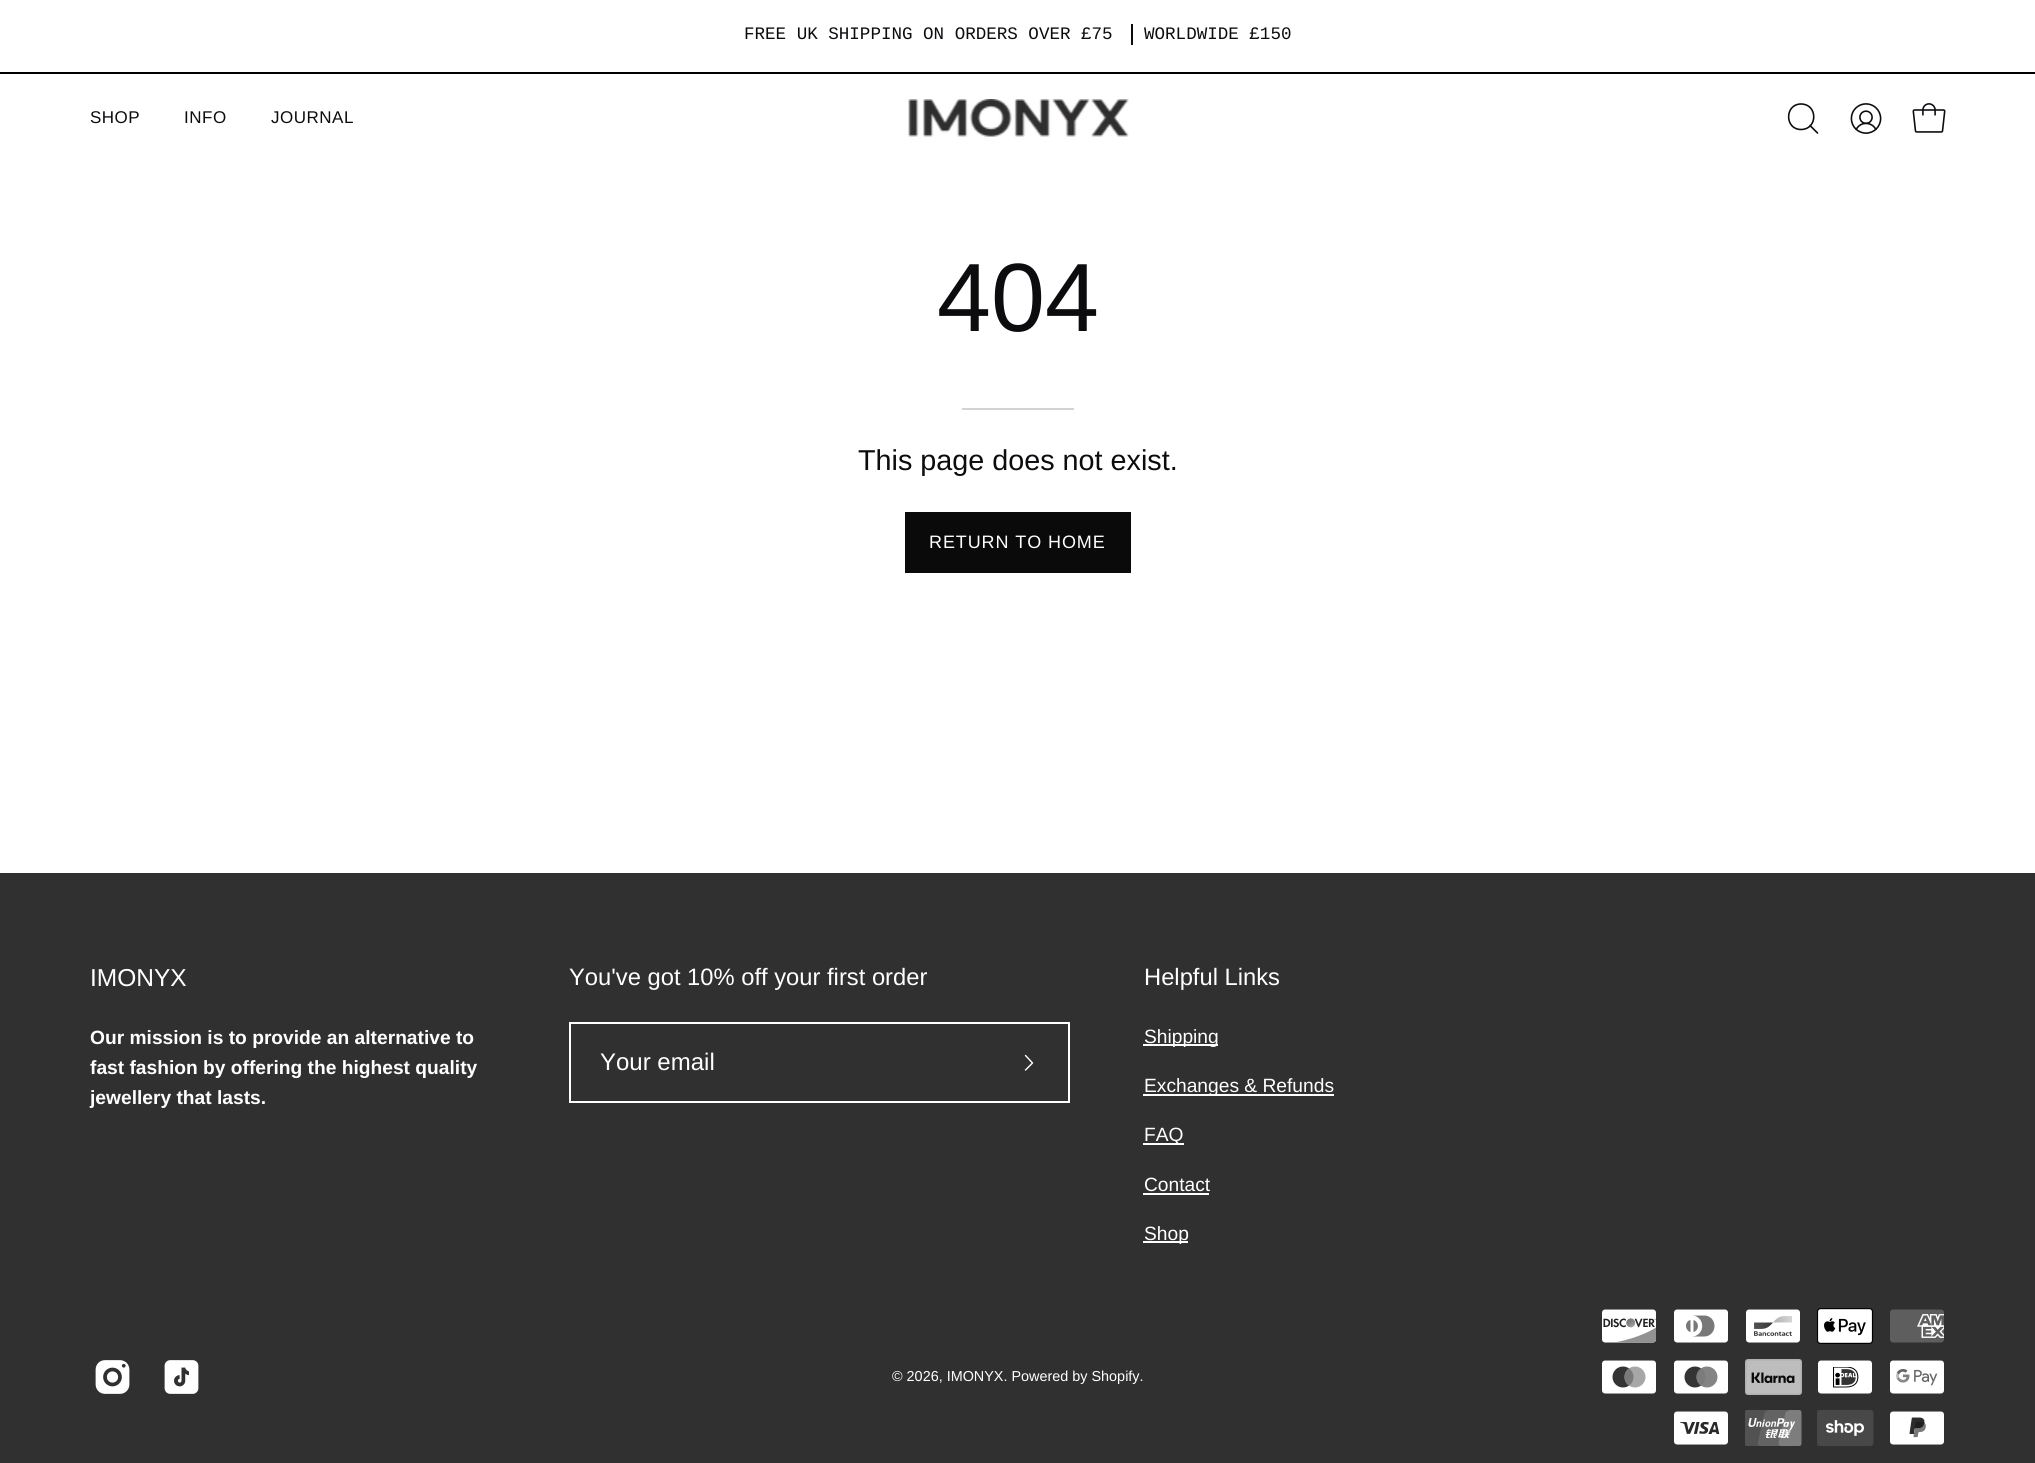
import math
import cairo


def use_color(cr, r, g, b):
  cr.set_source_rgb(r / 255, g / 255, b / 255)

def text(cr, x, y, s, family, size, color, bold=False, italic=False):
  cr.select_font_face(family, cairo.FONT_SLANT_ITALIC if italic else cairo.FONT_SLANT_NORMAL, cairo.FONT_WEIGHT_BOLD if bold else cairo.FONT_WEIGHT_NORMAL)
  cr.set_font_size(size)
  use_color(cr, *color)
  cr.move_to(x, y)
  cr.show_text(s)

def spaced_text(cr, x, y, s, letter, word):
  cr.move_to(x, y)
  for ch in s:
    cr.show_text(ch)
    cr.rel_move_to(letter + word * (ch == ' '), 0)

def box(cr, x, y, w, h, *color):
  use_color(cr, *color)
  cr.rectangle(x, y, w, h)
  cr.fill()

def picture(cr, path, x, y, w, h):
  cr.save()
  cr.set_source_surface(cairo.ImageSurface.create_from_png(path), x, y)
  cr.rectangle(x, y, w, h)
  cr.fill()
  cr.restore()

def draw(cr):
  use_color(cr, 255, 255, 255)
  cr.paint()
  box(cr, 0, 72, 2035, 2, 0, 0, 0)
  box(cr, 1131, 24, 2, 21, 12, 12, 15)
  cr.new_path()
  cr.move_to(1801, 129.5)
  cr.curve_to(1818, 129.5, 1818, 104, 1801, 104)
  cr.curve_to(1784.5, 104, 1784.5, 129.5, 1801, 129.5)
  cr.close_path()
  cr.move_to(1810, 125.5)
  cr.line_to(1817.5, 133)
  cr.set_line_width(1.6)
  cr.set_line_cap(cairo.LINE_CAP_ROUND)
  cr.set_line_join(cairo.LINE_JOIN_ROUND)
  cr.stroke()
  picture(cr, "img_01.png", 1850, 103, 32, 31)
  picture(cr, "img_02.png", 1912, 103, 34, 30)
  picture(cr, "img_03.png", 908, 99, 221, 38)
  box(cr, 962, 408, 112, 2, 211, 211, 211)
  box(cr, 905, 512, 226, 61, 11, 10, 10)
  box(cr, 0, 873, 2035, 590, 48, 48, 48)
  box(cr, 569, 1022, 501, 2, 255, 255, 255)
  box(cr, 569, 1101, 420, 2, 255, 255, 255)
  box(cr, 569, 1022, 2, 81, 255, 255, 255)
  box(cr, 1068, 1022, 2, 81, 255, 255, 255)
  box(cr, 989, 1101, 81, 2, 255, 255, 255)
  cr.new_path()
  cr.move_to(1025.5, 1055.5)
  cr.line_to(1032.5, 1063)
  cr.line_to(1025.5, 1070)
  cr.set_line_width(1.4)
  cr.stroke()
  box(cr, 1143, 1044, 75, 2, 255, 255, 255)
  box(cr, 1143, 1094, 191, 2, 255, 255, 255)
  box(cr, 1143, 1143, 41, 2, 255, 255, 255)
  box(cr, 1143, 1193, 66, 2, 255, 255, 255)
  box(cr, 1143, 1241, 45, 2, 255, 255, 255)
  picture(cr, "img_04.png", 95, 1360, 35, 34)
  picture(cr, "img_05.png", 164, 1360, 35, 34)
  picture(cr, "img_06.png", 1602, 1309, 54, 34)
  picture(cr, "img_07.png", 1674, 1309, 54, 34)
  picture(cr, "img_08.png", 1746, 1309, 54, 34)
  picture(cr, "img_09.png", 1817, 1308, 57, 36)
  picture(cr, "img_10.png", 1890, 1309, 54, 34)
  picture(cr, "img_11.png", 1602, 1360, 54, 34)
  picture(cr, "img_12.png", 1674, 1360, 54, 34)
  picture(cr, "img_13.png", 1745, 1359, 57, 36)
  picture(cr, "img_14.png", 1818, 1360, 54, 34)
  picture(cr, "img_15.png", 1890, 1360, 54, 34)
  picture(cr, "img_16.png", 1674, 1411, 54, 34)
  picture(cr, "img_17.png", 1745, 1410, 57, 36)
  picture(cr, "img_18.png", 1817, 1410, 57, 36)
  picture(cr, "img_19.png", 1890, 1411, 54, 34)
  text(cr, 744, 39, "FREE UK SHIPPING ON ORDERS OVER £75", "Liberation Mono", 17.55, (12, 12, 15))
  text(cr, 1144, 39, "WORLDWIDE £150", "Liberation Mono", 17.55, (12, 12, 15))
  cr.select_font_face("Liberation Sans")
  cr.set_font_size(17)
  spaced_text(cr, 90, 123, "SHOP", 0.5, 0)
  spaced_text(cr, 184, 123, "INFO", 0.5, 0)
  spaced_text(cr, 271, 123, "JOURNAL", 0.5, 0)
  text(cr, 937, 331, "404", "Liberation Sans", 97, (12, 12, 15))
  text(cr, 858, 470, "This page does not exist.", "Liberation Sans", 28.75, (12, 12, 15))
  cr.set_font_size(18)
  use_color(cr, 255, 255, 255)
  spaced_text(cr, 929, 548, "RETURN TO HOME", 0.9, 0)
  text(cr, 90, 986, "IMONYX", "Liberation Sans", 24.5, (255, 255, 255))
  text(cr, 90, 1044, "Our mission is to provide an alternative to", "Liberation Sans", 19.2, (255, 255, 255), bold=True)
  text(cr, 90, 1074, "fast fashion by offering the highest quality", "Liberation Sans", 19.2, (255, 255, 255), bold=True)
  text(cr, 90, 1104, "jewellery that lasts.", "Liberation Sans", 19.2, (255, 255, 255), bold=True)
  text(cr, 569, 985, "You've got 10% off your first order", "Liberation Sans", 23.75, (255, 255, 255))
  text(cr, 600, 1070, "Your email", "Liberation Sans", 24, (255, 255, 255))
  text(cr, 1144, 985, "Helpful Links", "Liberation Sans", 23.75, (255, 255, 255))
  text(cr, 1144, 1043, "Shipping", "Liberation Sans", 19.2, (255, 255, 255))
  text(cr, 1144, 1092, "Exchanges & Refunds", "Liberation Sans", 19.2, (255, 255, 255))
  text(cr, 1144, 1141, "FAQ", "Liberation Sans", 19.2, (255, 255, 255))
  text(cr, 1144, 1191, "Contact", "Liberation Sans", 19.2, (255, 255, 255))
  text(cr, 1144, 1240, "Shop", "Liberation Sans", 19.2, (255, 255, 255))
  text(cr, 892, 1381, "© 2026, IMONYX. Powered by Shopify.", "Liberation Sans", 14.4, (255, 255, 255))


surface = cairo.ImageSurface(cairo.FORMAT_RGB24, 2035, 1463)
cr = cairo.Context(surface)
options = cairo.FontOptions()
options.set_hint_metrics(cairo.HINT_METRICS_OFF)
options.set_hint_style(cairo.HINT_STYLE_NONE)
cr.set_font_options(options)
cr.set_miter_limit(4)
draw(cr)
surface.write_to_png("out.png")
